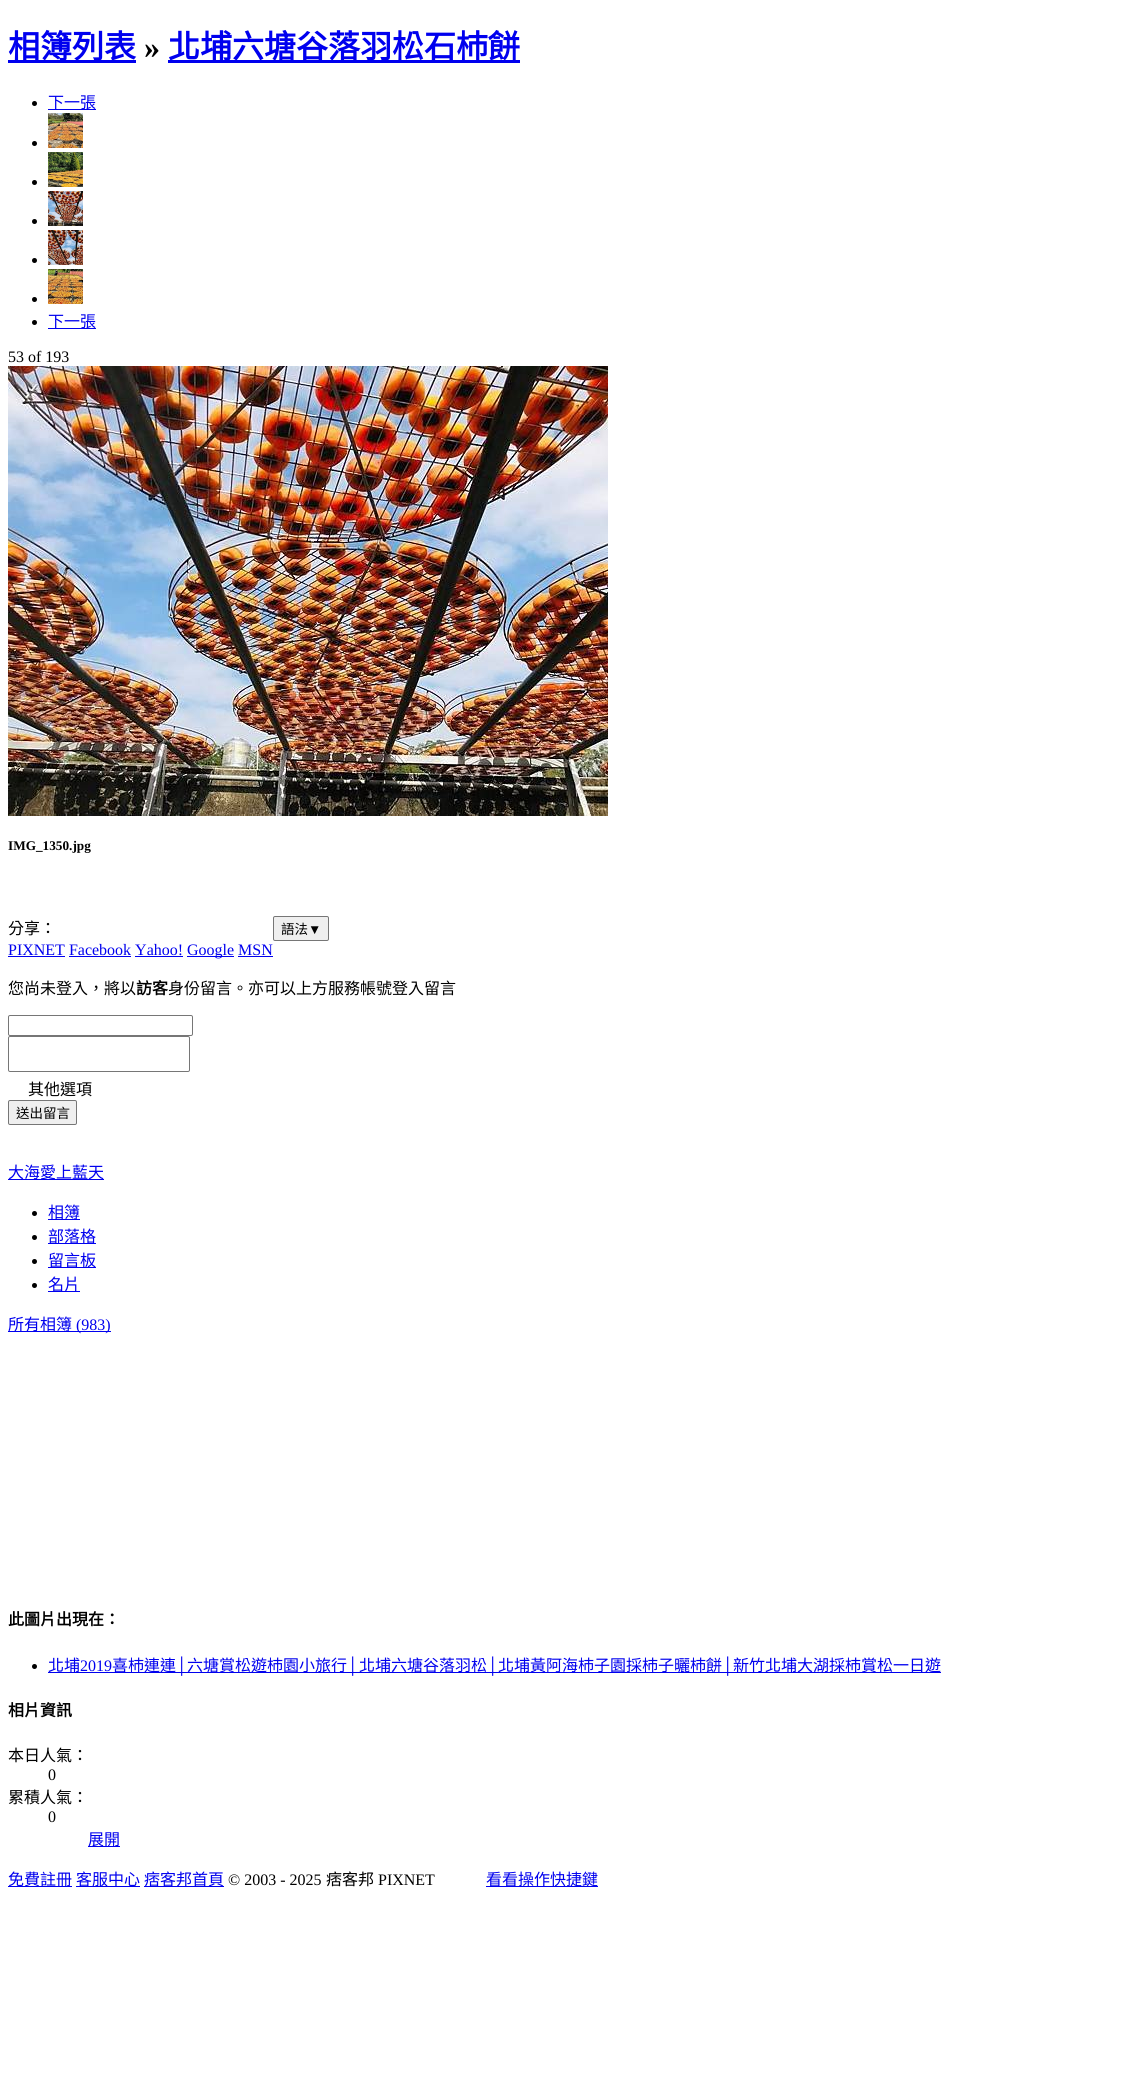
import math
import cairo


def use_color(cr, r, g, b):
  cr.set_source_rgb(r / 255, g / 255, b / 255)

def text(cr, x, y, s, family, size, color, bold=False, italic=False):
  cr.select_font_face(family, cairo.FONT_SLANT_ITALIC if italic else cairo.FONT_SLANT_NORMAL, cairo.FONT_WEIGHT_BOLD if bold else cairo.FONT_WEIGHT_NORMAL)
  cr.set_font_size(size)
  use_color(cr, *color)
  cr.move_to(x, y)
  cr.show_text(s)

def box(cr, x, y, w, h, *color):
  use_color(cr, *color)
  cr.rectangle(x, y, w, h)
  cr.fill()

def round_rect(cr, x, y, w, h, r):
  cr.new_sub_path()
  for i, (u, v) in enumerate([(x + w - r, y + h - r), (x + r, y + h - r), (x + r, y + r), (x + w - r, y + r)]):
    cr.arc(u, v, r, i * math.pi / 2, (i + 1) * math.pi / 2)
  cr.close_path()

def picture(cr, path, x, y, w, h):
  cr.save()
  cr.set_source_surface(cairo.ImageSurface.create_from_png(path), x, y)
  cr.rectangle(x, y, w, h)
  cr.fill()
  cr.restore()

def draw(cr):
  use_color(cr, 255, 255, 255)
  cr.paint()
  box(cr, 8, 60, 128, 3, 0, 0, 238)
  box(cr, 168, 60, 352, 3, 0, 0, 238)
  use_color(cr, 0, 0, 0)
  cr.arc(34.5, 103.5, 2.5, 0, 2 * math.pi)
  cr.fill()
  box(cr, 48, 109, 48, 1, 0, 0, 238)
  use_color(cr, 0, 0, 0)
  cr.arc(34.5, 143.5, 2.5, 0, 2 * math.pi)
  cr.fill()
  picture(cr, "img_01.png", 48, 113, 35, 35)
  cr.arc(34.5, 182.5, 2.5, 0, 2 * math.pi)
  cr.fill()
  picture(cr, "img_02.png", 48, 152, 35, 35)
  cr.arc(34.5, 221.5, 2.5, 0, 2 * math.pi)
  cr.fill()
  picture(cr, "img_03.png", 48, 191, 35, 35)
  cr.arc(34.5, 260.5, 2.5, 0, 2 * math.pi)
  cr.fill()
  picture(cr, "img_04.png", 48, 230, 35, 35)
  cr.arc(34.5, 299.5, 2.5, 0, 2 * math.pi)
  cr.fill()
  picture(cr, "img_05.png", 48, 269, 35, 35)
  cr.arc(34.5, 322.5, 2.5, 0, 2 * math.pi)
  cr.fill()
  box(cr, 48, 328, 48, 1, 0, 0, 238)
  picture(cr, "img_06.png", 8, 366, 600, 450)
  use_color(cr, 239, 239, 239)
  round_rect(cr, 273.5, 916.5, 55, 24, 1.5)
  cr.fill_preserve()
  use_color(cr, 118, 118, 118)
  cr.set_line_width(1)
  cr.stroke()
  box(cr, 8, 956, 57, 1, 0, 0, 238)
  box(cr, 187, 956, 47, 1, 0, 0, 238)
  box(cr, 69, 956, 62, 1, 0, 0, 238)
  box(cr, 135, 956, 48, 1, 0, 0, 238)
  box(cr, 238, 956, 35, 1, 0, 0, 238)
  round_rect(cr, 8.5, 1015.5, 184, 20, 1.5)
  use_color(cr, 118, 118, 118)
  cr.stroke()
  round_rect(cr, 8.5, 1036.5, 181, 35, 1.5)
  cr.stroke()
  use_color(cr, 239, 239, 239)
  round_rect(cr, 8.5, 1100.5, 68, 24, 1.5)
  cr.fill_preserve()
  use_color(cr, 118, 118, 118)
  cr.stroke()
  box(cr, 8, 1179, 96, 1, 0, 0, 238)
  use_color(cr, 0, 0, 0)
  cr.arc(34.5, 1213.5, 2.5, 0, 2 * math.pi)
  cr.fill()
  box(cr, 48, 1219, 32, 1, 0, 0, 238)
  use_color(cr, 0, 0, 0)
  cr.arc(34.5, 1237.5, 2.5, 0, 2 * math.pi)
  cr.fill()
  box(cr, 48, 1243, 48, 1, 0, 0, 238)
  use_color(cr, 0, 0, 0)
  cr.arc(34.5, 1261.5, 2.5, 0, 2 * math.pi)
  cr.fill()
  box(cr, 48, 1267, 48, 1, 0, 0, 238)
  use_color(cr, 0, 0, 0)
  cr.arc(34.5, 1285.5, 2.5, 0, 2 * math.pi)
  cr.fill()
  box(cr, 48, 1291, 32, 1, 0, 0, 238)
  box(cr, 8, 1331, 103, 1, 0, 0, 238)
  use_color(cr, 0, 0, 0)
  cr.arc(34.5, 1666.5, 2.5, 0, 2 * math.pi)
  cr.fill()
  box(cr, 48, 1672, 893, 1, 0, 0, 238)
  box(cr, 88, 1846, 32, 1, 0, 0, 238)
  box(cr, 8, 1886, 64, 1, 0, 0, 238)
  box(cr, 76, 1886, 64, 1, 0, 0, 238)
  box(cr, 144, 1886, 80, 1, 0, 0, 238)
  box(cr, 486, 1886, 112, 1, 0, 0, 238)
  text(cr, 8, 58, "相簿列表", "Noto Sans CJK TC", 32, (0, 0, 238), bold=True)
  text(cr, 144, 58, "»", "Liberation Serif", 32, (0, 0, 0), bold=True)
  text(cr, 168, 58, "北埔六塘谷落羽松石杮餅", "Noto Sans CJK TC", 32, (0, 0, 238), bold=True)
  text(cr, 48, 108, "下一張", "Noto Sans CJK TC", 16, (0, 0, 238))
  text(cr, 48, 327, "下一張", "Noto Sans CJK TC", 16, (0, 0, 238))
  text(cr, 8, 362, "53 of 193", "Liberation Serif", 16, (0, 0, 0))
  text(cr, 8, 850, "IMG_1350.jpg", "Liberation Serif", 13.25, (0, 0, 0), bold=True)
  text(cr, 8, 934, "分享：", "Noto Sans CJK TC", 16, (0, 0, 0))
  text(cr, 281, 934, "語法", "Noto Sans CJK TC", 13.5, (0, 0, 0))
  text(cr, 308, 934, "▼", "Liberation Sans", 13.5, (0, 0, 0))
  text(cr, 8, 955, "PIXNET Facebook Yahoo!", "Liberation Serif", 16, (0, 0, 238))
  text(cr, 187, 955, "Google MSN", "Liberation Serif", 16, (0, 0, 238))
  text(cr, 8, 994, "您尚未登入，將以", "Noto Sans CJK TC", 16, (0, 0, 0))
  text(cr, 136, 994, "訪客", "Noto Sans CJK TC", 16, (0, 0, 0), bold=True)
  text(cr, 168, 994, "身份留言。亦可以上方服務帳號登入留言", "Noto Sans CJK TC", 16, (0, 0, 0))
  text(cr, 28, 1095, "其他選項", "Noto Sans CJK TC", 16, (0, 0, 0))
  text(cr, 16, 1118, "送出留言", "Noto Sans CJK TC", 13.5, (0, 0, 0))
  text(cr, 8, 1178, "大海愛上藍天", "Noto Sans CJK TC", 16, (0, 0, 238))
  text(cr, 48, 1218, "相簿", "Noto Sans CJK TC", 16, (0, 0, 238))
  text(cr, 48, 1242, "部落格", "Noto Sans CJK TC", 16, (0, 0, 238))
  text(cr, 48, 1266, "留言板", "Noto Sans CJK TC", 16, (0, 0, 238))
  text(cr, 48, 1290, "名片", "Noto Sans CJK TC", 16, (0, 0, 238))
  text(cr, 8, 1330, "所有相簿", "Noto Sans CJK TC", 16, (0, 0, 238))
  text(cr, 76, 1330, "(983)", "Liberation Serif", 16, (0, 0, 238))
  text(cr, 8, 1625, "此圖片出現在：", "Noto Sans CJK TC", 16, (0, 0, 0), bold=True)
  text(cr, 48, 1671, "北埔", "Noto Sans CJK TC", 16, (0, 0, 238))
  text(cr, 80, 1671, "2019", "Liberation Serif", 16, (0, 0, 238))
  text(cr, 112, 1671, "喜杮連連", "Noto Sans CJK TC", 16, (0, 0, 238))
  text(cr, 176, 1671, "│", "Liberation Serif", 16, (0, 0, 238))
  text(cr, 187, 1671, "六塘賞松遊杮園小旅行", "Noto Sans CJK TC", 16, (0, 0, 238))
  text(cr, 347, 1671, "│", "Liberation Serif", 16, (0, 0, 238))
  text(cr, 359, 1671, "北埔六塘谷落羽松", "Noto Sans CJK TC", 16, (0, 0, 238))
  text(cr, 487, 1671, "│", "Liberation Serif", 16, (0, 0, 238))
  text(cr, 498, 1671, "北埔黃阿海杮子園採杮子曬杮餅", "Noto Sans CJK TC", 16, (0, 0, 238))
  text(cr, 722, 1671, "│", "Liberation Serif", 16, (0, 0, 238))
  text(cr, 733, 1671, "新竹北埔大湖採杮賞松一日遊", "Noto Sans CJK TC", 16, (0, 0, 238))
  text(cr, 8, 1716, "相片資訊", "Noto Sans CJK TC", 16, (0, 0, 0), bold=True)
  text(cr, 8, 1761, "本日人氣：", "Noto Sans CJK TC", 16, (0, 0, 0))
  text(cr, 48, 1780, "0", "Liberation Serif", 16, (0, 0, 0))
  text(cr, 8, 1803, "累積人氣：", "Noto Sans CJK TC", 16, (0, 0, 0))
  text(cr, 48, 1822, "0", "Liberation Serif", 16, (0, 0, 0))
  text(cr, 88, 1845, "展開", "Noto Sans CJK TC", 16, (0, 0, 238))
  text(cr, 8, 1885, "免費註冊", "Noto Sans CJK TC", 16, (0, 0, 238))
  text(cr, 76, 1885, "客服中心", "Noto Sans CJK TC", 16, (0, 0, 238))
  text(cr, 144, 1885, "痞客邦首頁", "Noto Sans CJK TC", 16, (0, 0, 238))
  text(cr, 228, 1885, "© 2003 - 2025", "Liberation Serif", 16, (0, 0, 0))
  text(cr, 326, 1885, "痞客邦", "Noto Sans CJK TC", 16, (0, 0, 0))
  text(cr, 378, 1885, "PIXNET", "Liberation Serif", 16, (0, 0, 0))
  text(cr, 486, 1885, "看看操作快捷鍵", "Noto Sans CJK TC", 16, (0, 0, 238))


surface = cairo.ImageSurface(cairo.FORMAT_RGB24, 1132, 2097)
cr = cairo.Context(surface)
options = cairo.FontOptions()
options.set_hint_metrics(cairo.HINT_METRICS_OFF)
options.set_hint_style(cairo.HINT_STYLE_NONE)
cr.set_font_options(options)
cr.set_miter_limit(4)
draw(cr)
surface.write_to_png("out.png")
